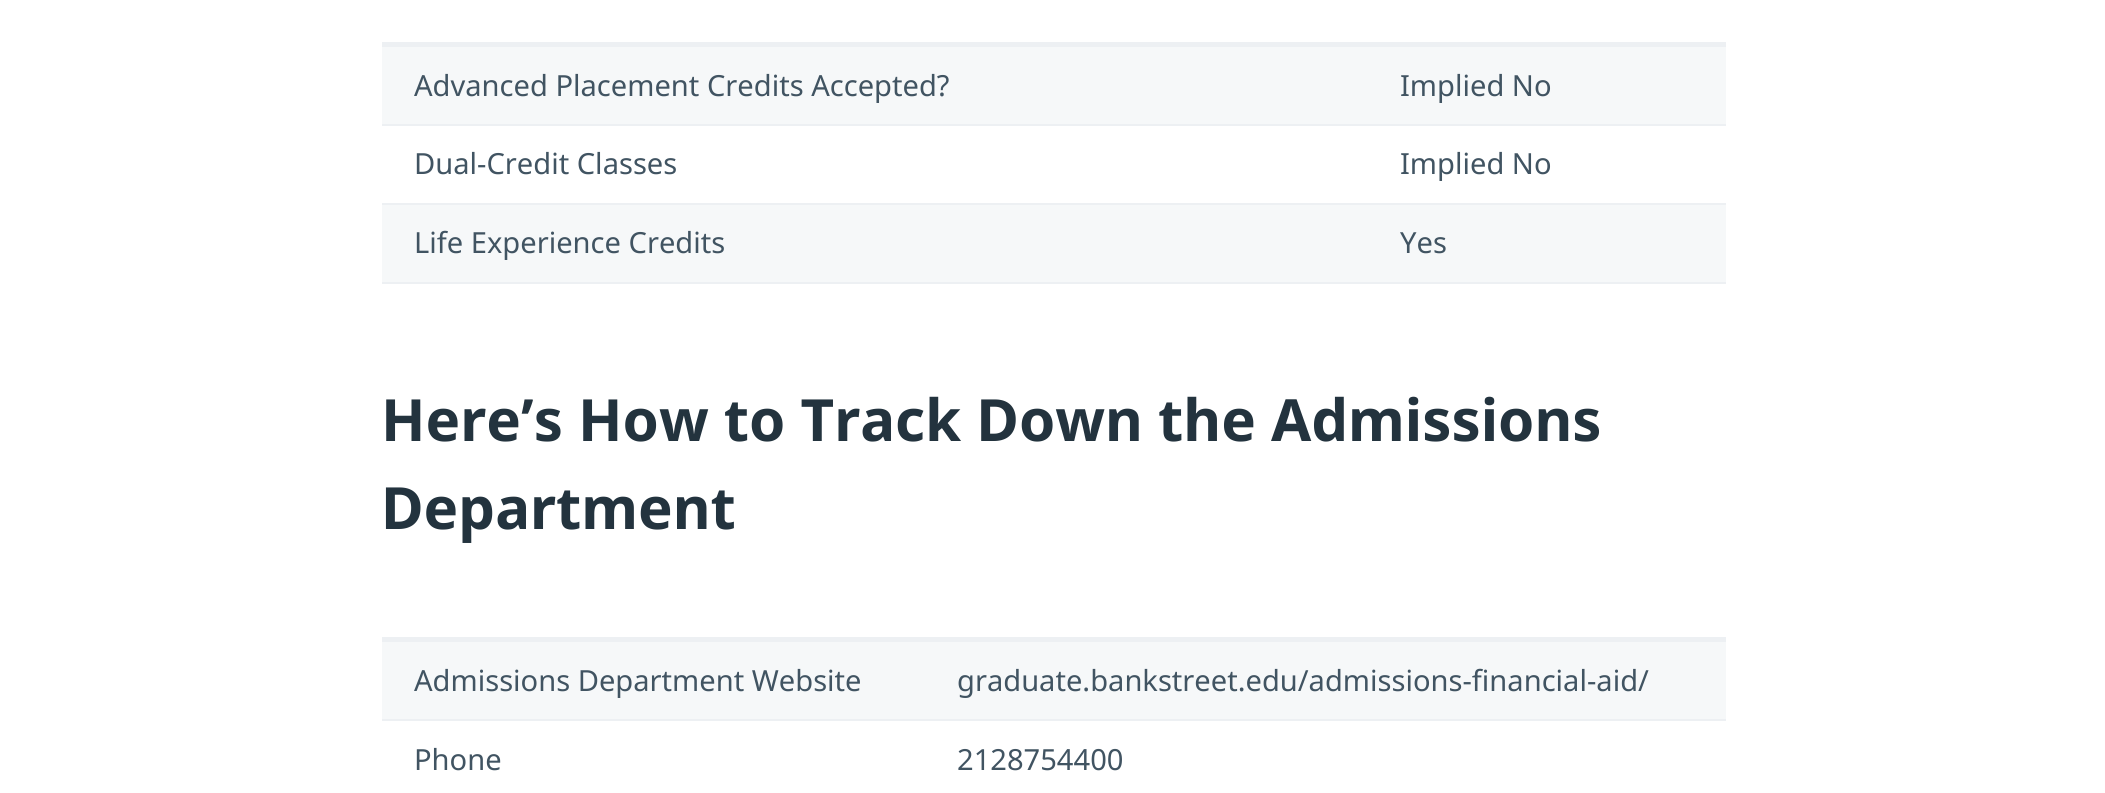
import math
import cairo


def use_color(cr, r, g, b):
  cr.set_source_rgb(r / 255, g / 255, b / 255)

def text(cr, x, y, s, family, size, color, bold=False, italic=False):
  cr.select_font_face(family, cairo.FONT_SLANT_ITALIC if italic else cairo.FONT_SLANT_NORMAL, cairo.FONT_WEIGHT_BOLD if bold else cairo.FONT_WEIGHT_NORMAL)
  cr.set_font_size(size)
  use_color(cr, *color)
  cr.move_to(x, y)
  cr.show_text(s)

def box(cr, x, y, w, h, *color):
  use_color(cr, *color)
  cr.rectangle(x, y, w, h)
  cr.fill()

def draw(cr):
  use_color(cr, 255, 255, 255)
  cr.paint()
  box(cr, 382, 42, 1344, 5, 237, 240, 243)
  box(cr, 382, 47, 1344, 77, 246, 248, 249)
  box(cr, 382, 124, 1344, 2, 237, 240, 243)
  box(cr, 382, 203, 1344, 2, 237, 240, 243)
  box(cr, 382, 205, 1344, 77, 246, 248, 249)
  box(cr, 382, 282, 1344, 2, 237, 240, 243)
  box(cr, 382, 637, 1344, 5, 237, 240, 243)
  box(cr, 382, 642, 1344, 77, 246, 248, 249)
  box(cr, 382, 719, 1344, 2, 237, 240, 243)
  text(cr, 414, 96, "Advanced Placement Credits Accepted?", "Noto Sans", 29.1, (65, 84, 98))
  text(cr, 1400, 96, "Implied No", "Noto Sans", 29.1, (65, 84, 98))
  text(cr, 414, 174, "Dual-Credit Classes", "Noto Sans", 29.1, (65, 84, 98))
  text(cr, 1400, 174, "Implied No", "Noto Sans", 29.1, (65, 84, 98))
  text(cr, 414, 253, "Life Experience Credits", "Noto Sans", 29.1, (65, 84, 98))
  text(cr, 1400, 253, "Yes", "Noto Sans", 29.1, (65, 84, 98))
  text(cr, 381, 441, "Here’s How to Track Down the Admissions", "Noto Sans", 58.2, (35, 51, 62), bold=True)
  text(cr, 381, 529, "Department", "Noto Sans", 58.2, (35, 51, 62), bold=True)
  text(cr, 414, 691, "Admissions Department Website", "Noto Sans", 29.1, (65, 84, 98))
  text(cr, 957, 691, "graduate.bankstreet.edu/admissions-financial-aid/", "Noto Sans", 29.1, (65, 84, 98))
  text(cr, 414, 770, "Phone", "Noto Sans", 29.1, (65, 84, 98))
  text(cr, 957, 770, "2128754400", "Noto Sans", 29.1, (65, 84, 98))


surface = cairo.ImageSurface(cairo.FORMAT_RGB24, 2105, 793)
cr = cairo.Context(surface)
options = cairo.FontOptions()
options.set_hint_metrics(cairo.HINT_METRICS_OFF)
options.set_hint_style(cairo.HINT_STYLE_NONE)
cr.set_font_options(options)
cr.set_miter_limit(4)
draw(cr)
surface.write_to_png("out.png")
